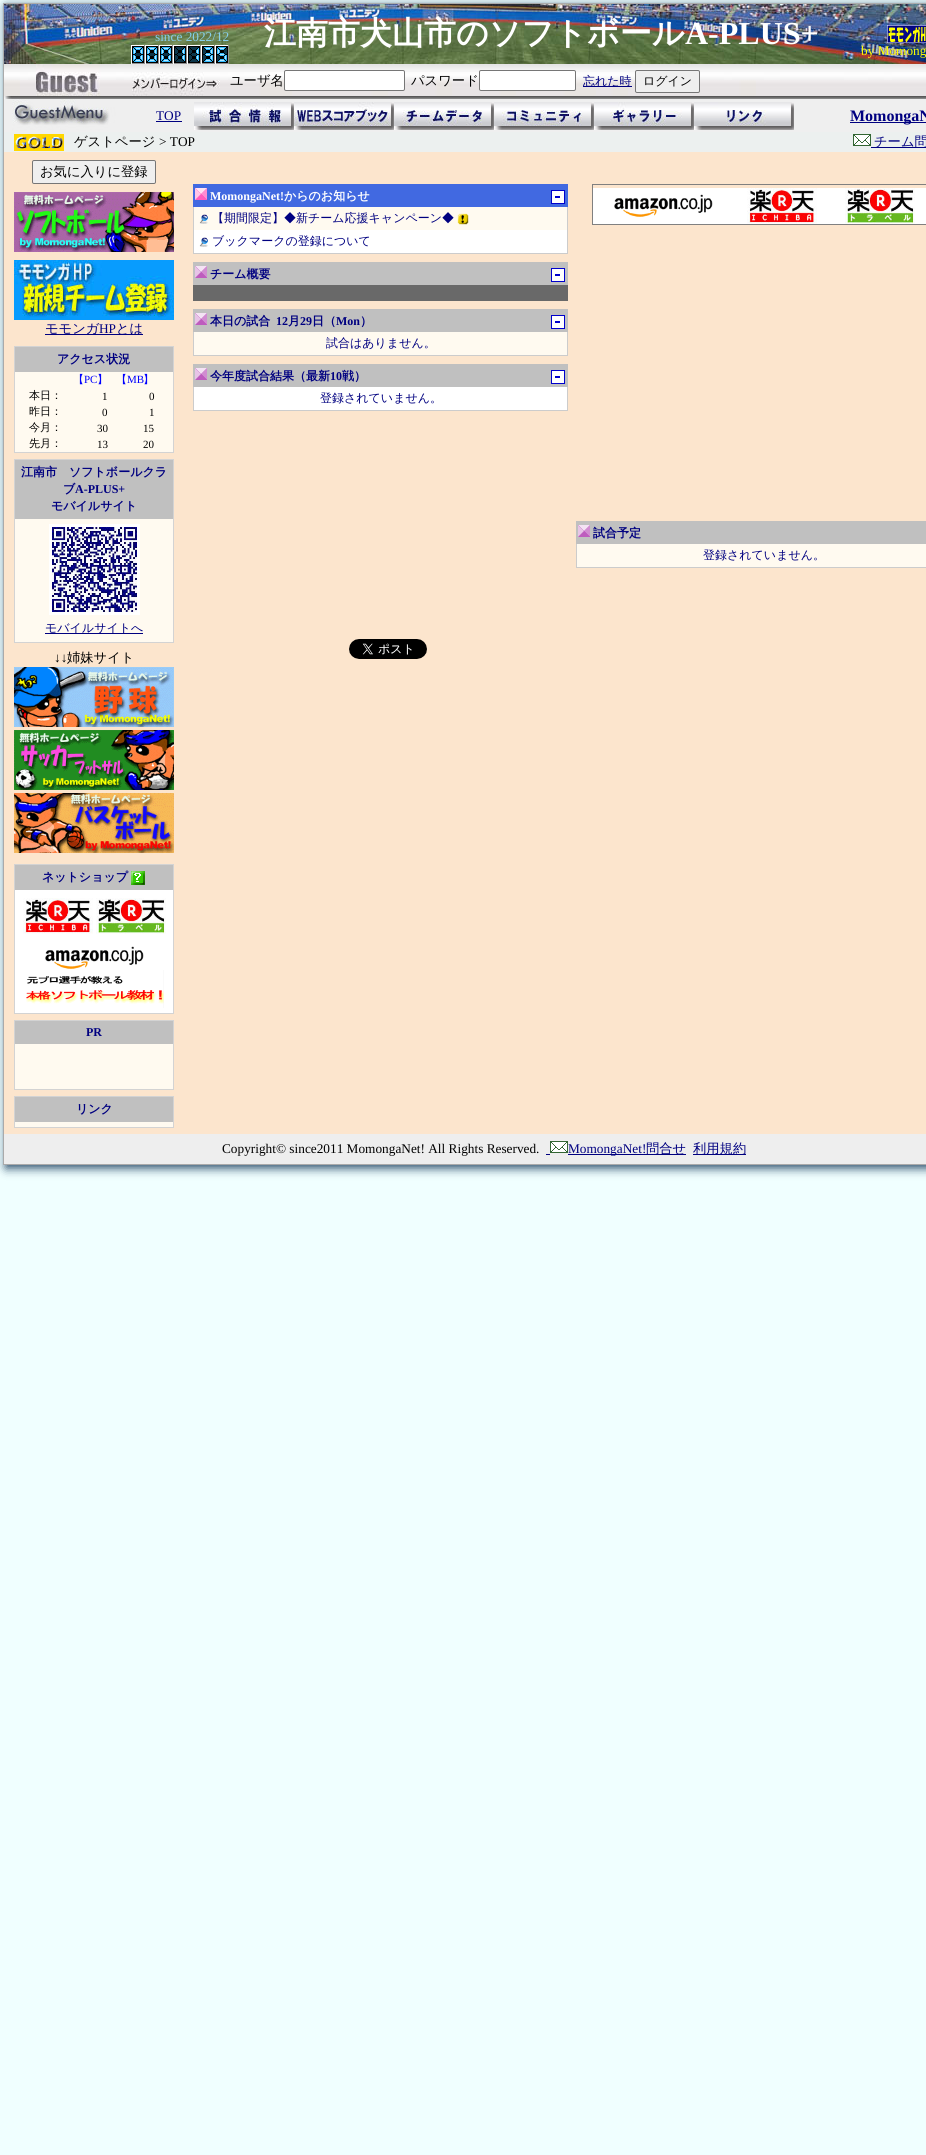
import math
import cairo


def use_color(cr, r, g, b):
  cr.set_source_rgb(r / 255, g / 255, b / 255)

def text(cr, x, y, s, family, size, color, bold=False, italic=False):
  cr.select_font_face(family, cairo.FONT_SLANT_ITALIC if italic else cairo.FONT_SLANT_NORMAL, cairo.FONT_WEIGHT_BOLD if bold else cairo.FONT_WEIGHT_NORMAL)
  cr.set_font_size(size)
  use_color(cr, *color)
  cr.move_to(x, y)
  cr.show_text(s)

def box(cr, x, y, w, h, *color):
  use_color(cr, *color)
  cr.rectangle(x, y, w, h)
  cr.fill()

def round_rect(cr, x, y, w, h, r):
  cr.new_sub_path()
  for i, (u, v) in enumerate([(x + w - r, y + h - r), (x + r, y + h - r), (x + r, y + r), (x + w - r, y + r)]):
    cr.arc(u, v, r, i * math.pi / 2, (i + 1) * math.pi / 2)
  cr.close_path()

def shadow(cr, x, y, w, h, r, blur, alpha):
  cr.push_group_with_content(cairo.CONTENT_ALPHA)
  cr.set_operator(cairo.OPERATOR_SOURCE)
  for i in range(15, -16, -2):
    e = blur * i / 6
    if min(w, h) + 2 * e > 0:
      cr.set_source_rgba(0, 0, 0, alpha * math.erfc((i - 1) / 8.5) / 2)
      round_rect(cr, x - e, y - e, w + 2 * e, h + 2 * e, max(0, min(r + e + blur * .6, min(w, h) / 2 + e)))
      cr.fill()
  cr.mask(cr.pop_group())

def picture(cr, path, x, y, w, h):
  cr.save()
  cr.set_source_surface(cairo.ImageSurface.create_from_png(path), x, y)
  cr.rectangle(x, y, w, h)
  cr.fill()
  cr.restore()

def draw(cr):
  use_color(cr, 240, 255, 255)
  cr.paint()
  use_color(cr, 36, 71, 102)
  shadow(cr, 6, 6, 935, 1162, 0, 5, 1)
  box(cr, 4, 152, 922, 982, 252, 229, 205)
  cr.rectangle(3.5, 3.5, 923, 1161)
  use_color(cr, 170, 170, 170)
  cr.set_line_width(1)
  cr.stroke()
  picture(cr, "img_01.png", 4, 4, 922, 60)
  picture(cr, "img_02.png", 131, 45, 14, 19)
  picture(cr, "img_02.png", 145, 45, 14, 19)
  picture(cr, "img_02.png", 159, 45, 14, 19)
  picture(cr, "img_03.png", 173, 45, 14, 19)
  picture(cr, "img_03.png", 187, 45, 14, 19)
  picture(cr, "img_04.png", 201, 45, 14, 19)
  picture(cr, "img_05.png", 215, 45, 14, 19)
  picture(cr, "img_06.png", 887, 25, 39, 18)
  picture(cr, "img_07.png", 4, 64, 922, 35)
  use_color(cr, 255, 255, 255)
  round_rect(cr, 284.5, 70.5, 120, 20, 1.5)
  cr.fill_preserve()
  use_color(cr, 118, 118, 118)
  cr.stroke()
  use_color(cr, 255, 255, 255)
  round_rect(cr, 479.5, 70.5, 96, 20, 1.5)
  cr.fill_preserve()
  use_color(cr, 118, 118, 118)
  cr.stroke()
  box(cr, 583, 86, 49, 1, 0, 0, 128)
  use_color(cr, 239, 239, 239)
  round_rect(cr, 635.5, 70.5, 64, 22, 1.5)
  cr.fill_preserve()
  use_color(cr, 118, 118, 118)
  cr.stroke()
  picture(cr, "img_08.png", 4, 99, 922, 33)
  box(cr, 156, 121, 26, 1, 0, 0, 128)
  picture(cr, "img_09.png", 194, 102, 100, 28)
  picture(cr, "img_10.png", 294, 102, 100, 28)
  picture(cr, "img_11.png", 394, 102, 100, 28)
  picture(cr, "img_12.png", 494, 102, 100, 28)
  picture(cr, "img_13.png", 594, 102, 100, 28)
  picture(cr, "img_14.png", 694, 102, 100, 28)
  box(cr, 850, 122, 76, 1, 0, 0, 128)
  box(cr, 4, 132, 922, 20, 236, 240, 239)
  picture(cr, "img_15.png", 14, 134, 50, 17)
  picture(cr, "img_16.png", 853, 134, 18, 12)
  box(cr, 871, 147, 55, 1, 0, 0, 128)
  use_color(cr, 239, 239, 239)
  round_rect(cr, 32.5, 160.5, 123, 23, 1.5)
  cr.fill_preserve()
  use_color(cr, 118, 118, 118)
  cr.stroke()
  picture(cr, "img_17.png", 14, 192, 160, 60)
  picture(cr, "img_18.png", 14, 260, 160, 60)
  box(cr, 45, 334, 98, 1, 0, 0, 128)
  box(cr, 15, 372, 158, 80, 255, 250, 240)
  cr.rectangle(14.5, 346.5, 159, 106)
  use_color(cr, 211, 211, 211)
  cr.stroke()
  box(cr, 15, 347, 158, 25, 192, 192, 192)
  box(cr, 15, 519, 158, 123, 255, 250, 240)
  cr.rectangle(14.5, 459.5, 159, 183)
  use_color(cr, 211, 211, 211)
  cr.stroke()
  box(cr, 15, 460, 158, 59, 192, 192, 192)
  cr.rectangle(50.5, 525.5, 88, 88)
  use_color(cr, 255, 255, 255)
  cr.set_line_width(3)
  cr.stroke()
  picture(cr, "img_19.png", 52, 527, 85, 85)
  box(cr, 45, 633, 98, 1, 0, 0, 128)
  picture(cr, "img_20.png", 14, 667, 160, 60)
  picture(cr, "img_21.png", 14, 730, 160, 60)
  picture(cr, "img_22.png", 14, 793, 160, 60)
  box(cr, 15, 890, 158, 123, 255, 255, 255)
  cr.rectangle(14.5, 864.5, 159, 149)
  use_color(cr, 211, 211, 211)
  cr.set_line_width(1)
  cr.stroke()
  box(cr, 15, 865, 158, 25, 192, 192, 192)
  picture(cr, "img_23.png", 131, 871, 14, 14)
  picture(cr, "img_24.png", 23, 898, 70, 36)
  picture(cr, "img_25.png", 96, 898, 70, 36)
  picture(cr, "img_26.png", 45, 946, 99, 23)
  picture(cr, "img_27.png", 26, 970, 138, 38)
  box(cr, 15, 1044, 158, 45, 255, 250, 240)
  cr.rectangle(14.5, 1020.5, 159, 69)
  use_color(cr, 211, 211, 211)
  cr.stroke()
  box(cr, 15, 1021, 158, 23, 192, 192, 192)
  box(cr, 15, 1122, 158, 5, 255, 250, 240)
  cr.rectangle(14.5, 1096.5, 159, 31)
  use_color(cr, 211, 211, 211)
  cr.stroke()
  box(cr, 15, 1097, 158, 25, 192, 192, 192)
  box(cr, 193, 184, 375, 23, 65, 105, 225)
  picture(cr, "img_28.png", 195, 188, 12, 12)
  picture(cr, "img_29.png", 551, 190, 14, 14)
  box(cr, 194, 207, 373, 23, 255, 250, 240)
  box(cr, 567, 207, 1, 47, 204, 204, 204)
  box(cr, 193, 253, 375, 1, 204, 204, 204)
  box(cr, 193, 207, 1, 47, 204, 204, 204)
  picture(cr, "img_30.png", 199, 214, 9, 10)
  picture(cr, "img_31.png", 457, 213, 12, 12)
  box(cr, 194, 230, 373, 23, 255, 255, 255)
  picture(cr, "img_32.png", 199, 237, 9, 10)
  box(cr, 193, 262, 375, 23, 192, 192, 192)
  picture(cr, "img_33.png", 195, 266, 12, 12)
  picture(cr, "img_29.png", 551, 268, 14, 14)
  box(cr, 193, 285, 375, 16, 105, 105, 105)
  box(cr, 193, 309, 375, 23, 192, 192, 192)
  picture(cr, "img_33.png", 195, 313, 12, 12)
  picture(cr, "img_29.png", 551, 315, 14, 14)
  box(cr, 194, 332, 373, 23, 255, 250, 240)
  box(cr, 567, 332, 1, 24, 204, 204, 204)
  box(cr, 193, 355, 375, 1, 204, 204, 204)
  box(cr, 193, 332, 1, 24, 204, 204, 204)
  box(cr, 193, 364, 375, 23, 192, 192, 192)
  picture(cr, "img_33.png", 195, 368, 12, 12)
  picture(cr, "img_29.png", 551, 370, 14, 14)
  box(cr, 567, 387, 1, 24, 204, 204, 204)
  box(cr, 193, 410, 375, 1, 204, 204, 204)
  box(cr, 193, 387, 1, 24, 204, 204, 204)
  box(cr, 194, 387, 373, 23, 255, 255, 255)
  cr.rectangle(592.5, 184.5, 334, 40)
  use_color(cr, 128, 128, 128)
  cr.stroke()
  box(cr, 593, 188, 333, 36, 255, 255, 255)
  picture(cr, "img_26.png", 614, 194, 99, 23)
  picture(cr, "img_34.png", 747, 188, 70, 36)
  picture(cr, "img_35.png", 845, 188, 70, 36)
  box(cr, 576, 521, 350, 23, 192, 192, 192)
  picture(cr, "img_33.png", 578, 525, 12, 12)
  box(cr, 577, 544, 349, 23, 255, 250, 240)
  box(cr, 576, 567, 350, 1, 204, 204, 204)
  box(cr, 576, 544, 1, 24, 204, 204, 204)
  picture(cr, "img_36.png", 349, 639, 78, 20)
  box(cr, 4, 1134, 922, 30, 238, 238, 238)
  picture(cr, "img_16.png", 550, 1141, 18, 12)
  box(cr, 546, 1154, 4, 1, 0, 0, 128)
  box(cr, 568, 1154, 118, 1, 0, 0, 128)
  box(cr, 693, 1154, 53, 1, 0, 0, 128)
  text(cr, 155, 41, "since 2022/12", "Liberation Serif", 13.3, (135, 206, 235))
  text(cr, 264, 44, "江南市犬山市のソフトボール", "WenQuanYi Zen Hei", 32, (255, 255, 255), bold=True)
  text(cr, 685, 44, "A-PLUS+", "Liberation Serif", 32, (255, 255, 255), bold=True)
  text(cr, 861, 55, "by Momong", "Liberation Serif", 13.3, (255, 255, 0))
  text(cr, 230, 85, "ユーザ名", "WenQuanYi Zen Hei Medium", 13.3, (0, 0, 0))
  text(cr, 411, 85, "パスワード", "WenQuanYi Zen Hei Medium", 13.3, (0, 0, 0))
  text(cr, 583, 85, "忘れた時", "WenQuanYi Zen Hei Medium", 12, (0, 0, 128))
  text(cr, 643, 85, "ログイン", "WenQuanYi Zen Hei Medium", 12, (0, 0, 0))
  text(cr, 156, 120, "TOP", "Liberation Serif", 13.3, (0, 0, 128))
  text(cr, 850, 121, "MomongaN", "Liberation Serif", 16, (0, 0, 128), bold=True)
  text(cr, 74, 146, "ゲストページ", "WenQuanYi Zen Hei Medium", 13.3, (0, 0, 0))
  text(cr, 159, 146, "> TOP", "Liberation Serif", 13.3, (0, 0, 0))
  text(cr, 874, 146, "チーム問", "WenQuanYi Zen Hei Medium", 13.3, (0, 0, 128))
  text(cr, 40, 176, "お気に入りに登録", "WenQuanYi Zen Hei Medium", 13.3, (0, 0, 0))
  text(cr, 45, 333, "モモンガ", "WenQuanYi Zen Hei Medium", 13.3, (0, 0, 128))
  text(cr, 99, 333, "HP", "Liberation Serif", 13.3, (0, 0, 128))
  text(cr, 116, 333, "とは", "WenQuanYi Zen Hei Medium", 13.3, (0, 0, 128))
  text(cr, 57, 363, "アクセス状況", "WenQuanYi Zen Hei", 12, (0, 0, 128), bold=True)
  text(cr, 73, 383, "【", "WenQuanYi Zen Hei Medium", 11, (0, 0, 255))
  text(cr, 84, 383, "PC", "Liberation Serif", 11, (0, 0, 255))
  text(cr, 97, 383, "】", "WenQuanYi Zen Hei Medium", 11, (0, 0, 255))
  text(cr, 116, 383, "【", "WenQuanYi Zen Hei Medium", 11, (0, 0, 255))
  text(cr, 127, 383, "MB", "Liberation Serif", 11, (0, 0, 255))
  text(cr, 143, 383, "】", "WenQuanYi Zen Hei Medium", 11, (0, 0, 255))
  text(cr, 29, 399, "本日：", "WenQuanYi Zen Hei Medium", 11, (0, 0, 0))
  text(cr, 102, 400, "1", "Liberation Serif", 11, (0, 0, 0))
  text(cr, 149, 400, "0", "Liberation Serif", 11, (0, 0, 0))
  text(cr, 29, 415, "昨日：", "WenQuanYi Zen Hei Medium", 11, (0, 0, 0))
  text(cr, 102, 416, "0", "Liberation Serif", 11, (0, 0, 0))
  text(cr, 149, 416, "1", "Liberation Serif", 11, (0, 0, 0))
  text(cr, 29, 431, "今月：", "WenQuanYi Zen Hei Medium", 11, (0, 0, 0))
  text(cr, 97, 432, "30", "Liberation Serif", 11, (0, 0, 0))
  text(cr, 143, 432, "15", "Liberation Serif", 11, (0, 0, 0))
  text(cr, 29, 447, "先月：", "WenQuanYi Zen Hei Medium", 11, (0, 0, 0))
  text(cr, 97, 448, "13", "Liberation Serif", 11, (0, 0, 0))
  text(cr, 143, 448, "20", "Liberation Serif", 11, (0, 0, 0))
  text(cr, 21, 476, "江南市　ソフトボールクラ", "WenQuanYi Zen Hei", 12, (0, 0, 128), bold=True)
  text(cr, 63, 493, "ブ", "WenQuanYi Zen Hei", 12, (0, 0, 128), bold=True)
  text(cr, 75, 493, "A-PLUS+", "Liberation Serif", 12, (0, 0, 128), bold=True)
  text(cr, 51, 510, "モバイルサイト", "WenQuanYi Zen Hei", 12, (0, 0, 128), bold=True)
  text(cr, 45, 632, "モバイルサイトへ", "WenQuanYi Zen Hei Medium", 12, (0, 0, 128))
  text(cr, 54, 662, "↓↓", "Liberation Serif", 13.3, (0, 0, 0))
  text(cr, 67, 662, "姉妹サイト", "WenQuanYi Zen Hei Medium", 13.3, (0, 0, 0))
  text(cr, 42, 881, "ネットショップ", "WenQuanYi Zen Hei", 12, (0, 0, 128), bold=True)
  text(cr, 86, 1036, "PR", "Liberation Serif", 12, (0, 0, 128), bold=True)
  text(cr, 76, 1113, "リンク", "WenQuanYi Zen Hei", 12, (0, 0, 128), bold=True)
  text(cr, 210, 200, "MomongaNet!", "Liberation Serif", 12, (255, 255, 255), bold=True)
  text(cr, 284, 200, "からのお知らせ", "WenQuanYi Zen Hei", 12, (255, 255, 255), bold=True)
  text(cr, 212, 222, "【期間限定】◆新チーム応援キャンペーン◆", "WenQuanYi Zen Hei Medium", 12, (0, 0, 128))
  text(cr, 212, 245, "ブックマークの登録について", "WenQuanYi Zen Hei Medium", 12, (0, 0, 128))
  text(cr, 210, 278, "チーム概要", "WenQuanYi Zen Hei", 12, (0, 0, 128), bold=True)
  text(cr, 210, 325, "本日の試合", "WenQuanYi Zen Hei", 12, (0, 0, 128), bold=True)
  text(cr, 276, 325, "12", "Liberation Serif", 12, (0, 0, 128), bold=True)
  text(cr, 288, 325, "月", "WenQuanYi Zen Hei", 12, (0, 0, 128), bold=True)
  text(cr, 300, 325, "29", "Liberation Serif", 12, (0, 0, 128), bold=True)
  text(cr, 312, 325, "日（", "WenQuanYi Zen Hei", 12, (0, 0, 128), bold=True)
  text(cr, 336, 325, "Mon", "Liberation Serif", 12, (0, 0, 128), bold=True)
  text(cr, 360, 325, "）", "WenQuanYi Zen Hei", 12, (0, 0, 128), bold=True)
  text(cr, 326, 347, "試合はありません。", "WenQuanYi Zen Hei Medium", 12, (0, 0, 128))
  text(cr, 210, 380, "今年度試合結果（最新", "WenQuanYi Zen Hei", 12, (0, 0, 128), bold=True)
  text(cr, 330, 380, "10", "Liberation Serif", 12, (0, 0, 128), bold=True)
  text(cr, 342, 380, "戦）", "WenQuanYi Zen Hei", 12, (0, 0, 128), bold=True)
  text(cr, 320, 402, "登録されていません。", "WenQuanYi Zen Hei Medium", 12, (0, 0, 128))
  text(cr, 593, 537, "試合予定", "WenQuanYi Zen Hei", 12, (0, 0, 128), bold=True)
  text(cr, 703, 559, "登録されていません。", "WenQuanYi Zen Hei Medium", 12, (0, 0, 128))
  text(cr, 222, 1153, "Copyright© since2011 MomongaNet! All Rights Reserved.", "Liberation Serif", 13.3, (0, 0, 0))
  text(cr, 568, 1153, "MomongaNet!", "Liberation Serif", 13.3, (0, 0, 128))
  text(cr, 646, 1153, "問合せ", "WenQuanYi Zen Hei Medium", 13.3, (0, 0, 128))
  text(cr, 693, 1153, "利用規約", "WenQuanYi Zen Hei Medium", 13.3, (0, 0, 128))


surface = cairo.ImageSurface(cairo.FORMAT_RGB24, 926, 2155)
cr = cairo.Context(surface)
options = cairo.FontOptions()
options.set_hint_metrics(cairo.HINT_METRICS_OFF)
options.set_hint_style(cairo.HINT_STYLE_NONE)
cr.set_font_options(options)
cr.set_miter_limit(4)
draw(cr)
surface.write_to_png("out.png")
